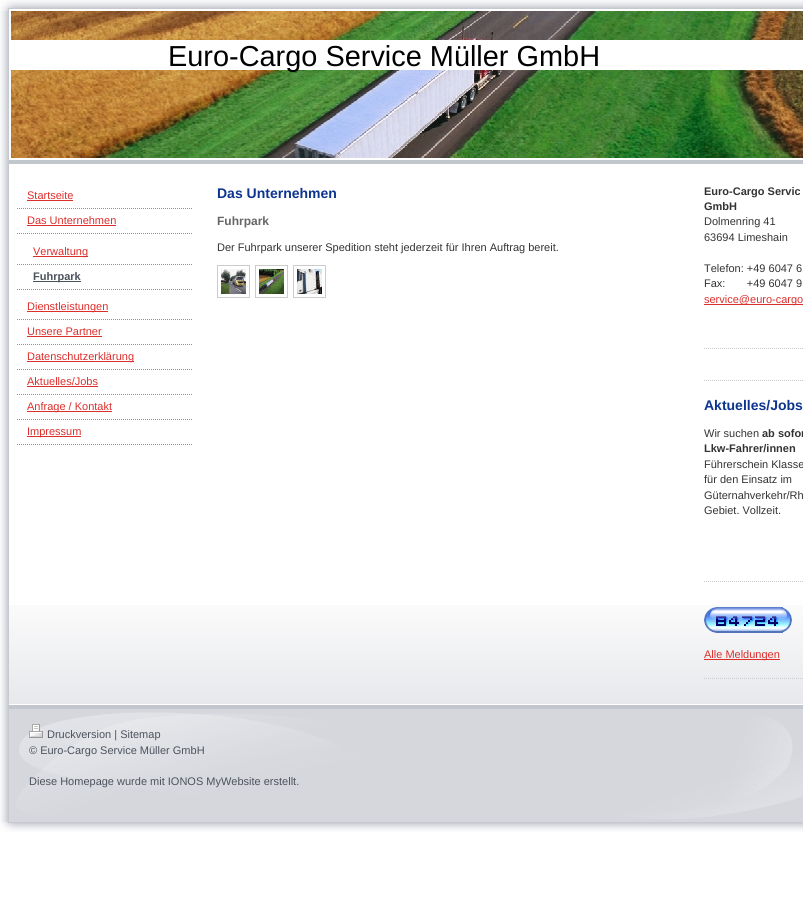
import math
import cairo


def use_color(cr, r, g, b):
  cr.set_source_rgb(r / 255, g / 255, b / 255)

def text(cr, x, y, s, family, size, color, bold=False, italic=False):
  cr.select_font_face(family, cairo.FONT_SLANT_ITALIC if italic else cairo.FONT_SLANT_NORMAL, cairo.FONT_WEIGHT_BOLD if bold else cairo.FONT_WEIGHT_NORMAL)
  cr.set_font_size(size)
  use_color(cr, *color)
  cr.move_to(x, y)
  cr.show_text(s)

def box(cr, x, y, w, h, *color):
  use_color(cr, *color)
  cr.rectangle(x, y, w, h)
  cr.fill()

def picture(cr, path, x, y, w, h):
  cr.save()
  cr.set_source_surface(cairo.ImageSurface.create_from_png(path), x, y)
  cr.rectangle(x, y, w, h)
  cr.fill()
  cr.restore()

def draw(cr):
  use_color(cr, 255, 255, 255)
  cr.paint()
  picture(cr, "img_01.png", 0, 0, 803, 11)
  picture(cr, "img_02.png", 0, 11, 9, 811)
  box(cr, 9, 160, 794, 4, 194, 198, 205)
  picture(cr, "img_03.png", 11, 11, 792, 147)
  box(cr, 11, 40, 792, 30, 255, 255, 255)
  picture(cr, "img_04.png", 9, 605, 794, 99)
  picture(cr, "img_05.png", 17, 208, 175, 1)
  box(cr, 27, 200, 46, 1, 219, 47, 44)
  picture(cr, "img_05.png", 17, 233, 175, 1)
  box(cr, 27, 225, 89, 1, 219, 47, 44)
  picture(cr, "img_05.png", 17, 264, 175, 1)
  box(cr, 33, 256, 55, 1, 219, 47, 44)
  picture(cr, "img_05.png", 17, 289, 175, 1)
  box(cr, 33, 281, 48, 1, 75, 82, 92)
  picture(cr, "img_05.png", 17, 319, 175, 1)
  box(cr, 27, 311, 81, 1, 219, 47, 44)
  picture(cr, "img_05.png", 17, 344, 175, 1)
  box(cr, 27, 336, 75, 1, 219, 47, 44)
  picture(cr, "img_05.png", 17, 369, 175, 1)
  box(cr, 27, 361, 107, 1, 219, 47, 44)
  picture(cr, "img_05.png", 17, 394, 175, 1)
  box(cr, 27, 386, 71, 1, 219, 47, 44)
  picture(cr, "img_05.png", 17, 419, 175, 1)
  box(cr, 27, 411, 85, 1, 219, 47, 44)
  picture(cr, "img_05.png", 17, 444, 175, 1)
  box(cr, 27, 436, 54, 1, 219, 47, 44)
  cr.rectangle(217.5, 265.5, 32, 32)
  use_color(cr, 204, 204, 204)
  cr.set_line_width(1)
  cr.stroke()
  picture(cr, "img_06.png", 221, 269, 25, 25)
  cr.rectangle(255.5, 265.5, 32, 32)
  cr.stroke()
  picture(cr, "img_07.png", 259, 269, 25, 25)
  cr.rectangle(293.5, 265.5, 32, 32)
  cr.stroke()
  picture(cr, "img_08.png", 297, 269, 25, 25)
  box(cr, 704, 304, 99, 1, 219, 47, 44)
  cr.new_path()
  cr.move_to(704, 348.5)
  cr.line_to(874, 348.5)
  use_color(cr, 204, 204, 204)
  cr.set_dash([1, 1])
  cr.stroke()
  cr.new_path()
  cr.move_to(704, 380.5)
  cr.line_to(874, 380.5)
  cr.stroke()
  cr.new_path()
  cr.move_to(704, 581.5)
  cr.line_to(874, 581.5)
  cr.stroke()
  picture(cr, "img_09.png", 704, 607, 12, 26)
  picture(cr, "img_10.png", 716, 607, 13, 26)
  picture(cr, "img_11.png", 729, 607, 13, 26)
  picture(cr, "img_12.png", 742, 607, 13, 26)
  picture(cr, "img_13.png", 755, 607, 13, 26)
  picture(cr, "img_11.png", 768, 607, 13, 26)
  picture(cr, "img_14.png", 781, 607, 11, 26)
  box(cr, 704, 659, 76, 1, 219, 47, 44)
  cr.new_path()
  cr.move_to(704, 678.5)
  cr.line_to(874, 678.5)
  use_color(cr, 204, 204, 204)
  cr.stroke()
  picture(cr, "img_15.png", 9, 705, 794, 117)
  picture(cr, "img_16.png", 29, 724, 14, 14)
  picture(cr, "img_17.png", 0, 822, 803, 10)
  text(cr, 168, 66, "Euro-Cargo Service Müller GmbH", "Liberation Sans", 28.9, (0, 0, 0))
  text(cr, 27, 199, "Startseite", "Liberation Sans", 11, (219, 47, 44))
  text(cr, 27, 224, "Das Unternehmen", "Liberation Sans", 11, (219, 47, 44))
  text(cr, 33, 255, "Verwaltung", "Liberation Sans", 11, (219, 47, 44))
  text(cr, 33, 280, "Fuhrpark", "Liberation Sans", 11, (75, 82, 92), bold=True)
  text(cr, 27, 310, "Dienstleistungen", "Liberation Sans", 11, (219, 47, 44))
  text(cr, 27, 335, "Unsere Partner", "Liberation Sans", 11, (219, 47, 44))
  text(cr, 27, 360, "Datenschutzerklärung", "Liberation Sans", 11, (219, 47, 44))
  text(cr, 27, 385, "Aktuelles/Jobs", "Liberation Sans", 11, (219, 47, 44))
  text(cr, 27, 410, "Anfrage / Kontakt", "Liberation Sans", 11, (219, 47, 44))
  text(cr, 27, 435, "Impressum", "Liberation Sans", 11, (219, 47, 44))
  text(cr, 217, 198, "Das Unternehmen", "Liberation Sans", 14, (13, 53, 143), bold=True)
  text(cr, 217, 225, "Fuhrpark", "Liberation Sans", 12, (102, 102, 102), bold=True)
  text(cr, 217, 251, "Der Fuhrpark unserer Spedition steht jederzeit für Ihren Auftrag bereit.", "Liberation Sans", 11, (51, 51, 51))
  text(cr, 704, 195, "Euro-Cargo Servic", "Liberation Sans", 11, (51, 51, 51), bold=True)
  text(cr, 704, 210, "GmbH", "Liberation Sans", 11, (51, 51, 51), bold=True)
  text(cr, 704, 225, "Dolmenring 41", "Liberation Sans", 11, (51, 51, 51))
  text(cr, 704, 241, "63694 Limeshain", "Liberation Sans", 11, (51, 51, 51))
  text(cr, 704, 272, "Telefon: +49 6047 6", "Liberation Sans", 11, (51, 51, 51))
  text(cr, 704, 287, "Fax:       +49 6047 9", "Liberation Sans", 11, (51, 51, 51))
  text(cr, 704, 303, "service@euro-cargo", "Liberation Sans", 11, (219, 47, 44))
  text(cr, 704, 410, "Aktuelles/Jobs", "Liberation Sans", 14, (13, 53, 143), bold=True)
  text(cr, 704, 437, "Wir suchen", "Liberation Sans", 11, (51, 51, 51))
  text(cr, 762, 437, "ab sofor", "Liberation Sans", 11, (51, 51, 51), bold=True)
  text(cr, 704, 452, "Lkw-Fahrer/innen", "Liberation Sans", 11, (51, 51, 51), bold=True)
  text(cr, 704, 468, "Führerschein Klasse", "Liberation Sans", 11, (51, 51, 51))
  text(cr, 704, 483, "für den Einsatz im", "Liberation Sans", 11, (51, 51, 51))
  text(cr, 704, 499, "Güternahverkehr/Rh", "Liberation Sans", 11, (51, 51, 51))
  text(cr, 704, 514, "Gebiet. Vollzeit.", "Liberation Sans", 11, (51, 51, 51))
  text(cr, 704, 658, "Alle Meldungen", "Liberation Sans", 11, (219, 47, 44))
  text(cr, 47, 738, "Druckversion | Sitemap", "Liberation Sans", 11, (75, 82, 92))
  text(cr, 29, 754, "© Euro-Cargo Service Müller GmbH", "Liberation Sans", 11, (75, 82, 92))
  text(cr, 29, 785, "Diese Homepage wurde mit IONOS MyWebsite erstellt.", "Liberation Sans", 11, (75, 82, 92))


surface = cairo.ImageSurface(cairo.FORMAT_RGB24, 803, 915)
cr = cairo.Context(surface)
options = cairo.FontOptions()
options.set_hint_metrics(cairo.HINT_METRICS_OFF)
options.set_hint_style(cairo.HINT_STYLE_NONE)
cr.set_font_options(options)
cr.set_miter_limit(4)
draw(cr)
surface.write_to_png("out.png")
